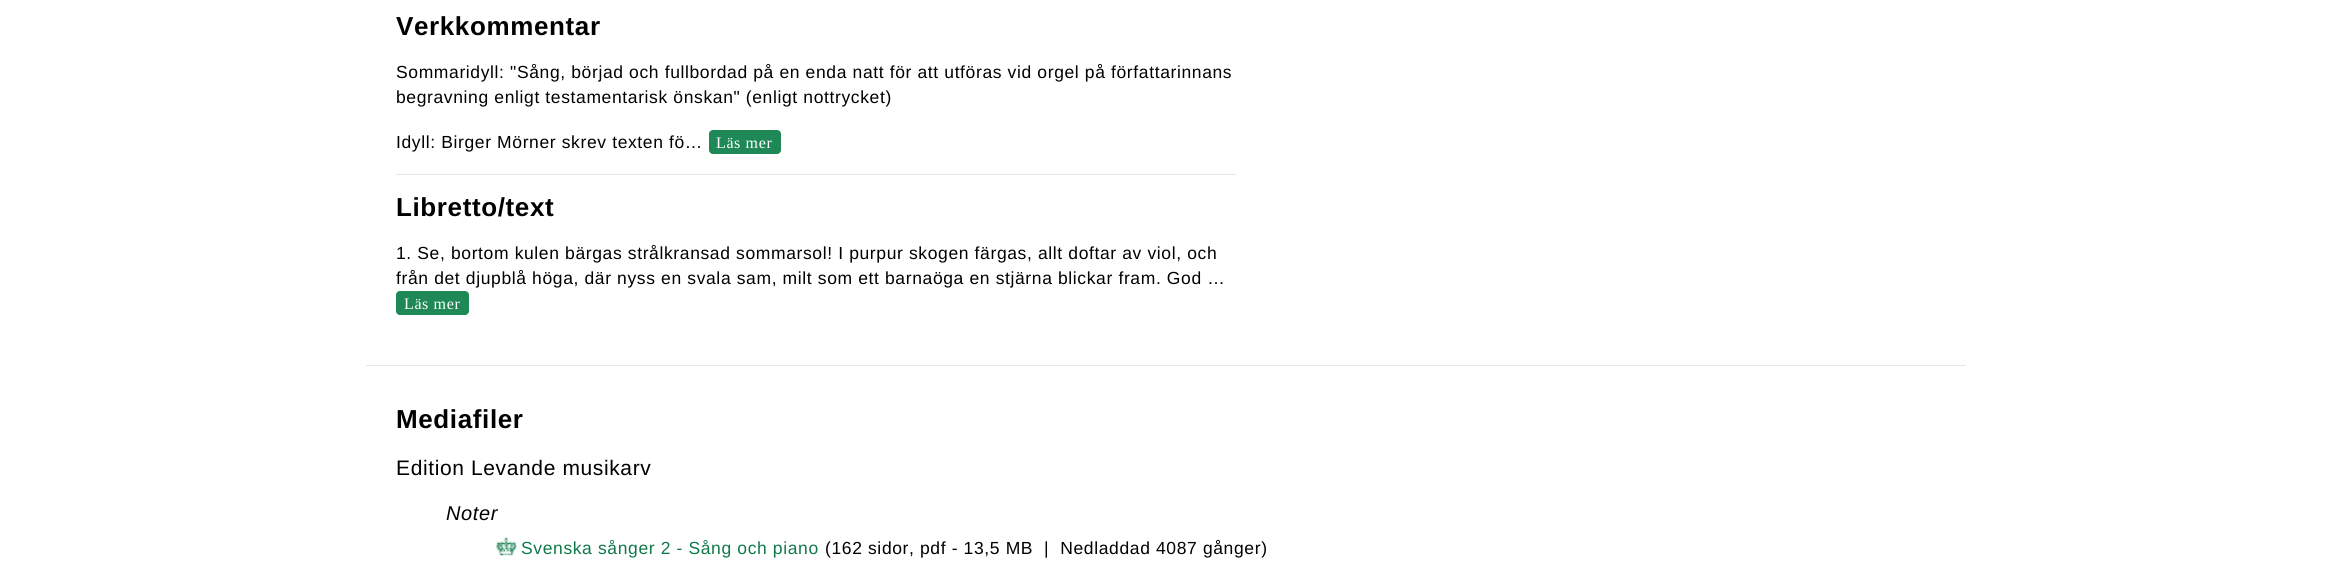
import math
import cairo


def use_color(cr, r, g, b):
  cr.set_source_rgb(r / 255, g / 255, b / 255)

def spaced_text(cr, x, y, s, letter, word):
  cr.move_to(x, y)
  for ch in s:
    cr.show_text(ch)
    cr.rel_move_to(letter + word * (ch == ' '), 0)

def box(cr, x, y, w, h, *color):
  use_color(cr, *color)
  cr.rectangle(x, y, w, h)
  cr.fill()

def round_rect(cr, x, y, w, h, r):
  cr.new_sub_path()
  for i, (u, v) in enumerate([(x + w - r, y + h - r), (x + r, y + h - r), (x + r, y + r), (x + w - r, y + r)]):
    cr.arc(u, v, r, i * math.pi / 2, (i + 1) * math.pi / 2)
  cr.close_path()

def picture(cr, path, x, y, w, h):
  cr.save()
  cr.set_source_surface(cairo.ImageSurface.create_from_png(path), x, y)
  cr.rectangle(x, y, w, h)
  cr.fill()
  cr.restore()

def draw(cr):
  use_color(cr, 255, 255, 255)
  cr.paint()
  use_color(cr, 30, 137, 87)
  round_rect(cr, 709, 130, 72, 24, 4)
  cr.fill()
  box(cr, 396, 174, 840, 1, 229, 231, 235)
  use_color(cr, 30, 137, 87)
  round_rect(cr, 396, 291, 73, 24, 4)
  cr.fill()
  box(cr, 366, 365, 1600, 1, 229, 231, 235)
  picture(cr, "img_01.png", 496, 537, 21, 19)
  cr.select_font_face("Liberation Sans", cairo.FONT_SLANT_NORMAL, cairo.FONT_WEIGHT_BOLD)
  cr.set_font_size(26)
  use_color(cr, 0, 0, 0)
  spaced_text(cr, 396, 35, "Verkkommentar", 0.62, 0)
  cr.select_font_face("Liberation Sans")
  cr.set_font_size(17.5)
  spaced_text(cr, 396, 78, "Sommaridyll: \"Sång, börjad och fullbordad på en enda natt för att utföras vid orgel på författarinnans", 0.62, 0)
  spaced_text(cr, 396, 103, "begravning enligt testamentarisk önskan\" (enligt nottrycket)", 0.62, 0)
  spaced_text(cr, 396, 148, "Idyll: Birger Mörner skrev texten fö…", 0.62, 0)
  cr.select_font_face("Liberation Serif")
  cr.set_font_size(16)
  use_color(cr, 255, 255, 255)
  spaced_text(cr, 716, 148, "Läs mer", 0.62, 0)
  cr.select_font_face("Liberation Sans", cairo.FONT_SLANT_NORMAL, cairo.FONT_WEIGHT_BOLD)
  cr.set_font_size(26)
  use_color(cr, 0, 0, 0)
  spaced_text(cr, 396, 216, "Libretto/text", 0.62, 0)
  cr.select_font_face("Liberation Sans")
  cr.set_font_size(17.5)
  spaced_text(cr, 396, 259, "1. Se, bortom kulen bärgas strålkransad sommarsol! I purpur skogen färgas, allt doftar av viol, och", 0.62, 0)
  spaced_text(cr, 396, 284, "från det djupblå höga, där nyss en svala sam, milt som ett barnaöga en stjärna blickar fram. God …", 0.62, 0)
  cr.select_font_face("Liberation Serif")
  cr.set_font_size(16)
  use_color(cr, 255, 255, 255)
  spaced_text(cr, 404, 309, "Läs mer", 0.62, 0)
  cr.select_font_face("Liberation Sans", cairo.FONT_SLANT_NORMAL, cairo.FONT_WEIGHT_BOLD)
  cr.set_font_size(26)
  use_color(cr, 0, 0, 0)
  spaced_text(cr, 396, 428, "Mediafiler", 0.62, 0)
  cr.select_font_face("Liberation Sans")
  cr.set_font_size(21)
  spaced_text(cr, 396, 475, "Edition Levande musikarv", 0.62, 0)
  cr.select_font_face("Liberation Sans", cairo.FONT_SLANT_ITALIC)
  cr.set_font_size(20)
  spaced_text(cr, 446, 520, "Noter", 0.62, 0)
  cr.select_font_face("Liberation Sans")
  cr.set_font_size(17.5)
  use_color(cr, 16, 121, 72)
  spaced_text(cr, 521, 554, "Svenska sånger 2 - Sång och piano", 0.62, 0)
  use_color(cr, 0, 0, 0)
  spaced_text(cr, 825, 554, "(162 sidor, pdf - 13,5 MB  |  Nedladdad 4087 gånger)", 0.62, 0)


surface = cairo.ImageSurface(cairo.FORMAT_RGB24, 2332, 583)
cr = cairo.Context(surface)
options = cairo.FontOptions()
options.set_hint_metrics(cairo.HINT_METRICS_OFF)
options.set_hint_style(cairo.HINT_STYLE_NONE)
cr.set_font_options(options)
cr.set_miter_limit(4)
draw(cr)
surface.write_to_png("out.png")
